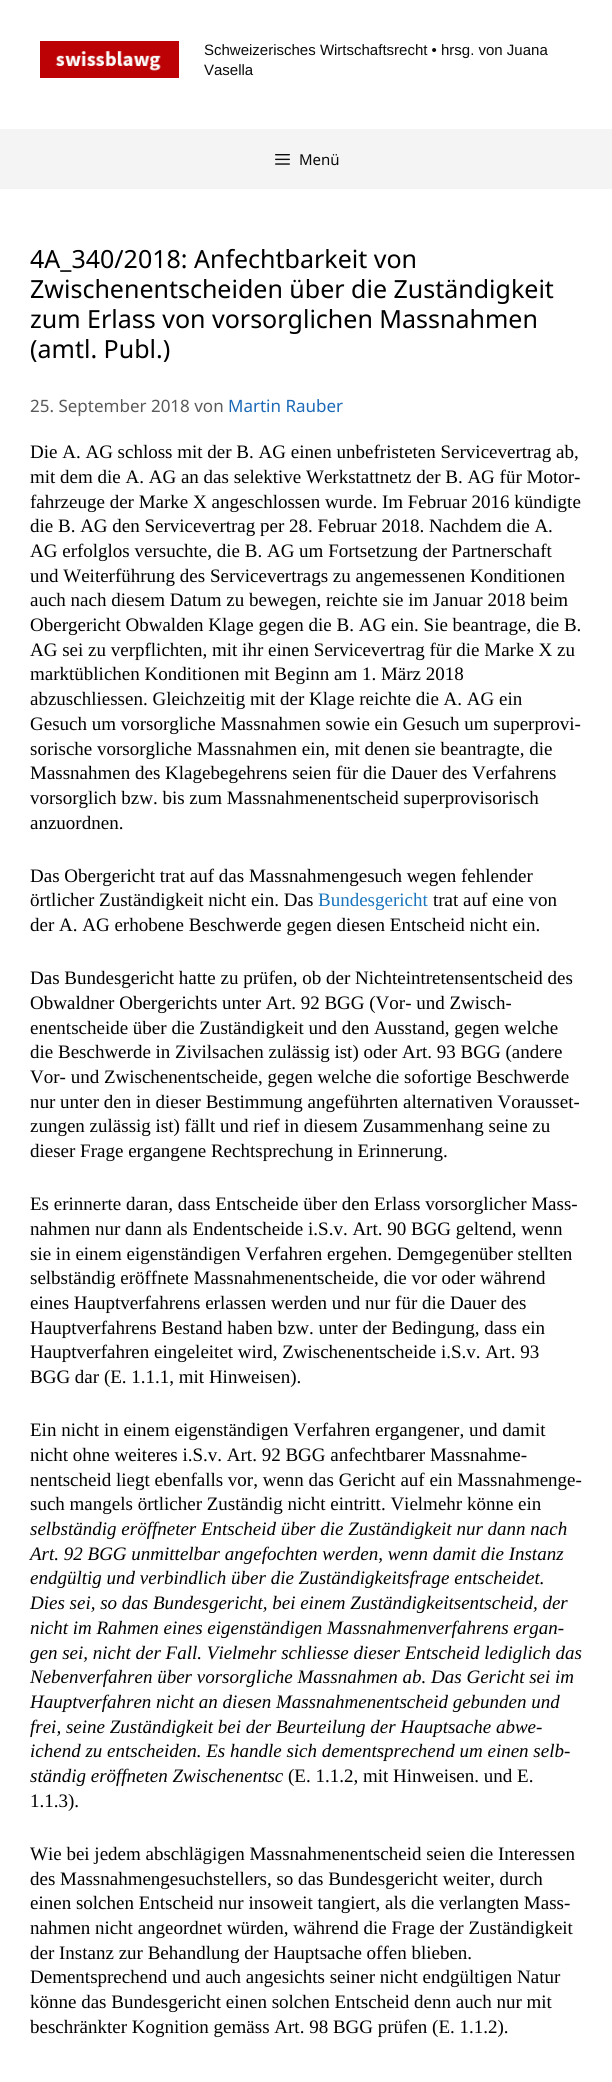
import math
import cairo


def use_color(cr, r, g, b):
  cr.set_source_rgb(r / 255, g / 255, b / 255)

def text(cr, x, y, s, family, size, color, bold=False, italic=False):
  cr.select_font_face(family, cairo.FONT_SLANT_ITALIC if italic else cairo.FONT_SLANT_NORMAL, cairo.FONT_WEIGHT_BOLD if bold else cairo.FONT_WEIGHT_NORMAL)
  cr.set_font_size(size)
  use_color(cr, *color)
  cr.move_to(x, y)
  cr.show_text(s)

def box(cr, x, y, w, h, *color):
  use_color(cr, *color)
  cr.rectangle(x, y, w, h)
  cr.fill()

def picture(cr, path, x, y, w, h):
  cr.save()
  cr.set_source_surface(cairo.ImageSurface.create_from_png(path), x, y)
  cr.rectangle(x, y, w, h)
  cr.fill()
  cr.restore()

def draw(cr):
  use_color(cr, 255, 255, 255)
  cr.paint()
  picture(cr, "img_01.png", 40, 41, 139, 37)
  box(cr, 0, 129, 612, 60, 244, 244, 244)
  picture(cr, "img_02.png", 275, 154, 15, 11)
  text(cr, 204, 55, "Schweizerisches Wirtschaftsrecht • hrsg. von Juana", "Liberation Sans", 15, (10, 10, 10))
  text(cr, 204, 75, "Vasella", "Liberation Sans", 15, (10, 10, 10))
  text(cr, 299, 165, "Menü", "Noto Sans", 15, (10, 10, 10))
  text(cr, 30, 268, "4A_340/2018: Anfechtbarkeit von", "Noto Sans", 25, (0, 0, 0))
  text(cr, 30, 298, "Zwischenentscheiden über die Zuständigkeit", "Noto Sans", 25, (0, 0, 0))
  text(cr, 30, 328, "zum Erlass von vorsorglichen Massnahmen", "Noto Sans", 25, (0, 0, 0))
  text(cr, 30, 358, "(amtl. Publ.)", "Noto Sans", 25, (0, 0, 0))
  text(cr, 30, 412, "25. September 2018 von", "Noto Sans", 17, (89, 89, 89))
  text(cr, 228, 412, "Martin Rauber", "Noto Sans", 17, (27, 105, 183))
  text(cr, 30, 458, "Die A. AG schloss mit der B. AG einen unbefristeten Servicevertrag ab,", "Liberation Serif", 19, (0, 0, 0))
  text(cr, 30, 483, "mit dem die A. AG an das selektive Werkstattnetz der B. AG für Motor-", "Liberation Serif", 19, (0, 0, 0))
  text(cr, 30, 508, "fahrzeuge der Marke X angeschlossen wurde. Im Februar 2016 kündigte", "Liberation Serif", 19, (0, 0, 0))
  text(cr, 30, 532, "die B. AG den Servicevertrag per 28. Februar 2018. Nachdem die A.", "Liberation Serif", 19, (0, 0, 0))
  text(cr, 30, 557, "AG erfolglos versuchte, die B. AG um Fortsetzung der Partnerschaft", "Liberation Serif", 19, (0, 0, 0))
  text(cr, 30, 582, "und Weiterführung des Servicevertrags zu angemessenen Konditionen", "Liberation Serif", 19, (0, 0, 0))
  text(cr, 30, 606, "auch nach diesem Datum zu bewegen, reichte sie im Januar 2018 beim", "Liberation Serif", 19, (0, 0, 0))
  text(cr, 30, 631, "Obergericht Obwalden Klage gegen die B. AG ein. Sie beantrage, die B.", "Liberation Serif", 19, (0, 0, 0))
  text(cr, 30, 656, "AG sei zu verpflichten, mit ihr einen Servicevertrag für die Marke X zu", "Liberation Serif", 19, (0, 0, 0))
  text(cr, 30, 680, "marktüblichen Konditionen mit Beginn am 1. März 2018", "Liberation Serif", 19, (0, 0, 0))
  text(cr, 30, 705, "abzuschliessen. Gleichzeitig mit der Klage reichte die A. AG ein", "Liberation Serif", 19, (0, 0, 0))
  text(cr, 30, 730, "Gesuch um vorsorgliche Massnahmen sowie ein Gesuch um superprovi-", "Liberation Serif", 19, (0, 0, 0))
  text(cr, 30, 755, "sorische vorsorgliche Massnahmen ein, mit denen sie beantragte, die", "Liberation Serif", 19, (0, 0, 0))
  text(cr, 30, 779, "Massnahmen des Klagebegehrens seien für die Dauer des Verfahrens", "Liberation Serif", 19, (0, 0, 0))
  text(cr, 30, 804, "vorsorglich bzw. bis zum Massnahmenentscheid superprovisorisch", "Liberation Serif", 19, (0, 0, 0))
  text(cr, 30, 829, "anzuordnen.", "Liberation Serif", 19, (0, 0, 0))
  text(cr, 30, 882, "Das Obergericht trat auf das Massnahmengesuch wegen fehlender", "Liberation Serif", 19, (0, 0, 0))
  text(cr, 30, 906, "örtlicher Zuständigkeit nicht ein. Das", "Liberation Serif", 19, (0, 0, 0))
  text(cr, 318, 906, "Bundesgericht", "Liberation Serif", 19, (25, 117, 189))
  text(cr, 433, 906, "trat auf eine von", "Liberation Serif", 19, (0, 0, 0))
  text(cr, 30, 931, "der A. AG erhobene Beschwerde gegen diesen Entscheid nicht ein.", "Liberation Serif", 19, (0, 0, 0))
  text(cr, 30, 984, "Das Bundesgericht hatte zu prüfen, ob der Nichteintretensentscheid des", "Liberation Serif", 19, (0, 0, 0))
  text(cr, 30, 1009, "Obwaldner Obergerichts unter Art. 92 BGG (Vor- und Zwisch-", "Liberation Serif", 19, (0, 0, 0))
  text(cr, 30, 1034, "enentscheide über die Zuständigkeit und den Ausstand, gegen welche", "Liberation Serif", 19, (0, 0, 0))
  text(cr, 30, 1058, "die Beschwerde in Zivilsachen zulässig ist) oder Art. 93 BGG (andere", "Liberation Serif", 19, (0, 0, 0))
  text(cr, 30, 1083, "Vor- und Zwischenentscheide, gegen welche die sofortige Beschwerde", "Liberation Serif", 19, (0, 0, 0))
  text(cr, 30, 1108, "nur unter den in dieser Bestimmung angeführten alternativen Vorausset-", "Liberation Serif", 19, (0, 0, 0))
  text(cr, 30, 1132, "zungen zulässig ist) fällt und rief in diesem Zusammenhang seine zu", "Liberation Serif", 19, (0, 0, 0))
  text(cr, 30, 1157, "dieser Frage ergangene Rechtsprechung in Erinnerung.", "Liberation Serif", 19, (0, 0, 0))
  text(cr, 30, 1210, "Es erinnerte daran, dass Entscheide über den Erlass vorsorglicher Mass-", "Liberation Serif", 19, (0, 0, 0))
  text(cr, 30, 1235, "nahmen nur dann als Endentscheide i.S.v. Art. 90 BGG geltend, wenn", "Liberation Serif", 19, (0, 0, 0))
  text(cr, 30, 1260, "sie in einem eigenständigen Verfahren ergehen. Demgegenüber stellten", "Liberation Serif", 19, (0, 0, 0))
  text(cr, 30, 1284, "selbständig eröffnete Massnahmenentscheide, die vor oder während", "Liberation Serif", 19, (0, 0, 0))
  text(cr, 30, 1309, "eines Hauptverfahrens erlassen werden und nur für die Dauer des", "Liberation Serif", 19, (0, 0, 0))
  text(cr, 30, 1334, "Hauptverfahrens Bestand haben bzw. unter der Bedingung, dass ein", "Liberation Serif", 19, (0, 0, 0))
  text(cr, 30, 1358, "Hauptverfahren eingeleitet wird, Zwischenentscheide i.S.v. Art. 93", "Liberation Serif", 19, (0, 0, 0))
  text(cr, 30, 1383, "BGG dar (E. 1.1.1, mit Hinweisen).", "Liberation Serif", 19, (0, 0, 0))
  text(cr, 30, 1436, "Ein nicht in einem eigenständigen Verfahren ergangener, und damit", "Liberation Serif", 19, (0, 0, 0))
  text(cr, 30, 1461, "nicht ohne weiteres i.S.v. Art. 92 BGG anfechtbarer Massnahme-", "Liberation Serif", 19, (0, 0, 0))
  text(cr, 30, 1486, "nentscheid liegt ebenfalls vor, wenn das Gericht auf ein Massnahmenge-", "Liberation Serif", 19, (0, 0, 0))
  text(cr, 30, 1510, "such mangels örtlicher Zuständig nicht eintritt. Vielmehr könne ein", "Liberation Serif", 19, (0, 0, 0))
  text(cr, 30, 1535, "selbständig eröffneter Entscheid über die Zuständigkeit nur dann nach", "Liberation Serif", 19, (0, 0, 0), italic=True)
  text(cr, 30, 1560, "Art. 92 BGG unmittelbar angefochten werden, wenn damit die Instanz", "Liberation Serif", 19, (0, 0, 0), italic=True)
  text(cr, 30, 1584, "endgültig und verbindlich über die Zuständigkeitsfrage entscheidet.", "Liberation Serif", 19, (0, 0, 0), italic=True)
  text(cr, 30, 1609, "Dies sei, so das Bundesgericht, bei einem Zuständigkeitsentscheid, der", "Liberation Serif", 19, (0, 0, 0), italic=True)
  text(cr, 30, 1634, "nicht im Rahmen eines eigenständigen Massnahmenverfahrens ergan-", "Liberation Serif", 19, (0, 0, 0), italic=True)
  text(cr, 30, 1659, "gen sei, nicht der Fall. Vielmehr schliesse dieser Entscheid lediglich das", "Liberation Serif", 19, (0, 0, 0), italic=True)
  text(cr, 30, 1683, "Nebenverfahren über vorsorgliche Massnahmen ab. Das Gericht sei im", "Liberation Serif", 19, (0, 0, 0), italic=True)
  text(cr, 30, 1708, "Hauptverfahren nicht an diesen Massnahmenentscheid gebunden und", "Liberation Serif", 19, (0, 0, 0), italic=True)
  text(cr, 30, 1733, "frei, seine Zuständigkeit bei der Beurteilung der Hauptsache abwe-", "Liberation Serif", 19, (0, 0, 0), italic=True)
  text(cr, 30, 1757, "ichend zu entscheiden. Es handle sich dementsprechend um einen selb-", "Liberation Serif", 19, (0, 0, 0), italic=True)
  text(cr, 30, 1782, "ständig eröffneten Zwischenentsc", "Liberation Serif", 19, (0, 0, 0), italic=True)
  text(cr, 288, 1782, "(E. 1.1.2, mit Hinweisen. und E.", "Liberation Serif", 19, (0, 0, 0))
  text(cr, 30, 1807, "1.1.3).", "Liberation Serif", 19, (0, 0, 0))
  text(cr, 30, 1860, "Wie bei jedem abschlägigen Massnahmenentscheid seien die Interessen", "Liberation Serif", 19, (0, 0, 0))
  text(cr, 30, 1885, "des Massnahmengesuchstellers, so das Bundesgericht weiter, durch", "Liberation Serif", 19, (0, 0, 0))
  text(cr, 30, 1909, "einen solchen Entscheid nur insoweit tangiert, als die verlangten Mass-", "Liberation Serif", 19, (0, 0, 0))
  text(cr, 30, 1934, "nahmen nicht angeordnet würden, während die Frage der Zuständigkeit", "Liberation Serif", 19, (0, 0, 0))
  text(cr, 30, 1959, "der Instanz zur Behandlung der Hauptsache offen blieben.", "Liberation Serif", 19, (0, 0, 0))
  text(cr, 30, 1983, "Dementsprechend und auch angesichts seiner nicht endgültigen Natur", "Liberation Serif", 19, (0, 0, 0))
  text(cr, 30, 2008, "könne das Bundesgericht einen solchen Entscheid denn auch nur mit", "Liberation Serif", 19, (0, 0, 0))
  text(cr, 30, 2033, "beschränkter Kognition gemäss Art. 98 BGG prüfen (E. 1.1.2).", "Liberation Serif", 19, (0, 0, 0))


surface = cairo.ImageSurface(cairo.FORMAT_RGB24, 612, 2082)
cr = cairo.Context(surface)
options = cairo.FontOptions()
options.set_hint_metrics(cairo.HINT_METRICS_OFF)
options.set_hint_style(cairo.HINT_STYLE_NONE)
cr.set_font_options(options)
cr.set_miter_limit(4)
draw(cr)
surface.write_to_png("out.png")
